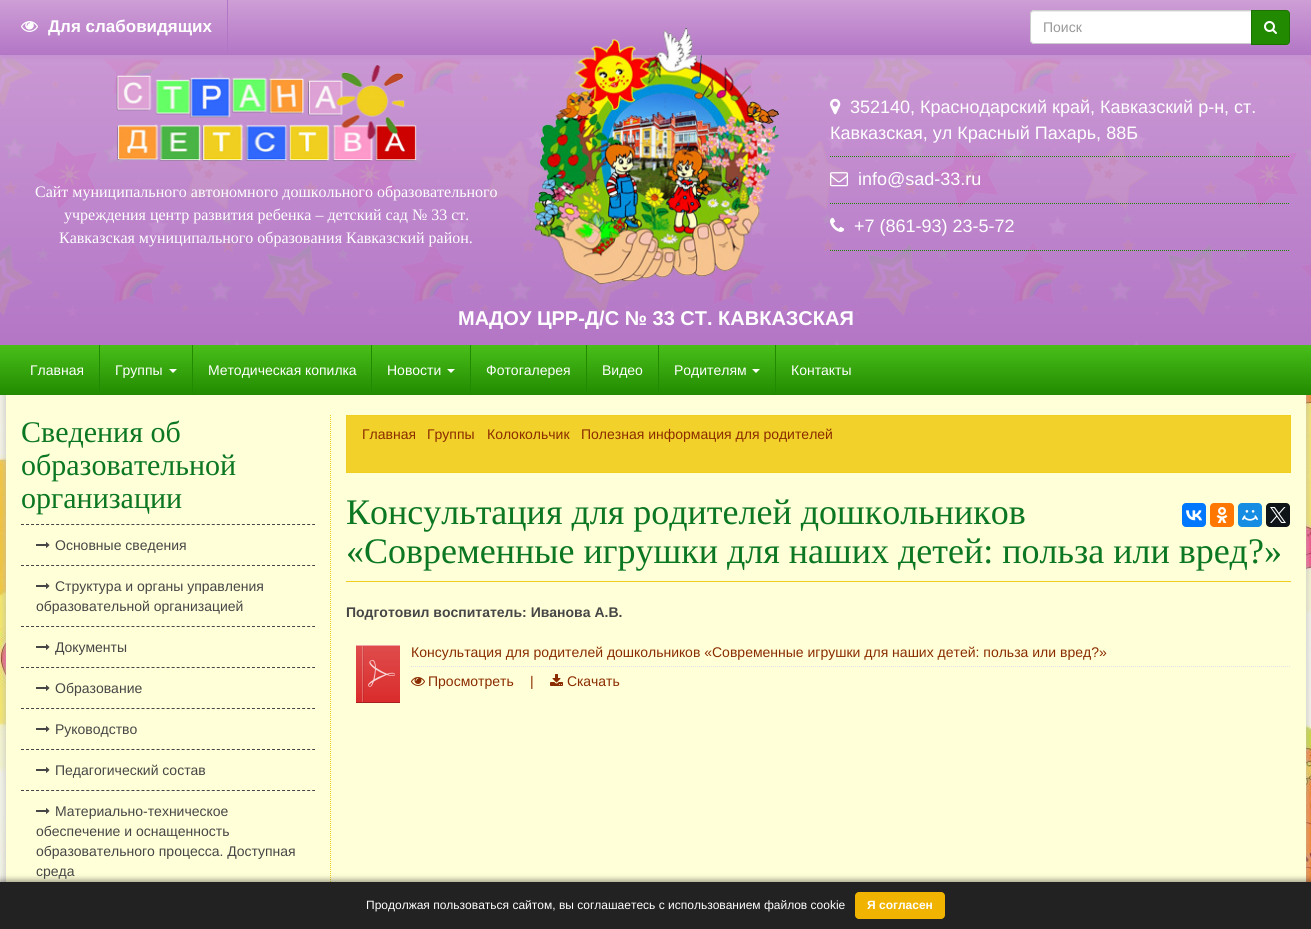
import math
import cairo


def use_color(cr, r, g, b):
  cr.set_source_rgb(r / 255, g / 255, b / 255)

def text(cr, x, y, s, family, size, color, bold=False, italic=False):
  cr.select_font_face(family, cairo.FONT_SLANT_ITALIC if italic else cairo.FONT_SLANT_NORMAL, cairo.FONT_WEIGHT_BOLD if bold else cairo.FONT_WEIGHT_NORMAL)
  cr.set_font_size(size)
  use_color(cr, *color)
  cr.move_to(x, y)
  cr.show_text(s)

def box(cr, x, y, w, h, *color):
  use_color(cr, *color)
  cr.rectangle(x, y, w, h)
  cr.fill()

def round_rect(cr, x, y, w, h, r):
  cr.new_sub_path()
  for i, (u, v) in enumerate([(x + w - r, y + h - r), (x + r, y + h - r), (x + r, y + r), (x + w - r, y + r)]):
    cr.arc(u, v, r, i * math.pi / 2, (i + 1) * math.pi / 2)
  cr.close_path()

def shadow(cr, x, y, w, h, r, blur, alpha):
  cr.push_group_with_content(cairo.CONTENT_ALPHA)
  cr.set_operator(cairo.OPERATOR_SOURCE)
  for i in range(15, -16, -2):
    e = blur * i / 6
    if min(w, h) + 2 * e > 0:
      cr.set_source_rgba(0, 0, 0, alpha * math.erfc((i - 1) / 8.5) / 2)
      round_rect(cr, x - e, y - e, w + 2 * e, h + 2 * e, max(0, min(r + e + blur * .6, min(w, h) / 2 + e)))
      cr.fill()
  cr.mask(cr.pop_group())

def picture(cr, path, x, y, w, h):
  cr.save()
  cr.set_source_surface(cairo.ImageSurface.create_from_png(path), x, y)
  cr.rectangle(x, y, w, h)
  cr.fill()
  cr.restore()

def draw(cr):
  use_color(cr, 255, 255, 255)
  cr.paint()
  gradient = cairo.LinearGradient(656, 345, 656, 0)
  gradient.add_color_stop_rgba(0, 0.702, 0.463, 0.776, 1)
  gradient.add_color_stop_rgba(1, 0.808, 0.62, 0.839, 1)
  cr.set_source(gradient)
  cr.rectangle(0, 55, 1311, 290)
  cr.fill()
  picture(cr, "img_01.png", 0, 55, 1311, 290)
  use_color(cr, 198, 147, 209)
  shadow(cr, 0, 4, 1311, 55, 0, 1.5, 1)
  gradient = cairo.LinearGradient(656, 55, 656, 0)
  gradient.add_color_stop_rgba(0, 0.702, 0.463, 0.776, 1)
  gradient.add_color_stop_rgba(1, 0.808, 0.62, 0.839, 1)
  cr.set_source(gradient)
  cr.rectangle(0, 0, 1311, 55)
  cr.fill()
  box(cr, 227, 0, 1, 54, 179, 118, 198)
  picture(cr, "img_02.png", 21, 21, 17, 11)
  use_color(cr, 255, 255, 255)
  cr.new_path()
  cr.move_to(1034, 10)
  cr.line_to(1252, 10)
  cr.line_to(1252, 44)
  cr.line_to(1034, 44)
  cr.curve_to(1032, 44, 1030, 42, 1030, 40)
  cr.line_to(1030, 14)
  cr.curve_to(1030, 12, 1032, 10, 1034, 10)
  cr.close_path()
  cr.fill()
  use_color(cr, 236, 236, 236)
  cr.new_path()
  cr.move_to(1034, 12)
  cr.line_to(1251, 12)
  cr.line_to(1251, 11)
  cr.line_to(1034, 11)
  cr.curve_to(1032, 11, 1031, 12, 1031, 14)
  cr.line_to(1031, 15)
  cr.curve_to(1031, 13, 1032, 12, 1034, 12)
  cr.close_path()
  cr.fill()
  cr.new_path()
  cr.move_to(1034, 10.5)
  cr.line_to(1251.5, 10.5)
  cr.line_to(1251.5, 43.5)
  cr.line_to(1034, 43.5)
  cr.curve_to(1032, 43.5, 1030.5, 42, 1030.5, 40)
  cr.line_to(1030.5, 14)
  cr.curve_to(1030.5, 12, 1032, 10.5, 1034, 10.5)
  cr.close_path()
  use_color(cr, 204, 204, 204)
  cr.set_line_width(1)
  cr.stroke()
  use_color(cr, 34, 138, 0)
  cr.new_path()
  cr.move_to(1251.5, 10.5)
  cr.line_to(1286, 10.5)
  cr.curve_to(1288, 10.5, 1289.5, 12, 1289.5, 14)
  cr.line_to(1289.5, 41)
  cr.curve_to(1289.5, 43, 1288, 44.5, 1286, 44.5)
  cr.line_to(1251.5, 44.5)
  cr.close_path()
  cr.fill_preserve()
  use_color(cr, 28, 113, 0)
  cr.stroke()
  picture(cr, "img_03.png", 1264, 21, 13, 13)
  picture(cr, "img_04.png", 116, 65, 301, 96)
  picture(cr, "img_05.png", 532, 28, 247, 256)
  cr.new_path()
  cr.move_to(830, 156.5)
  cr.line_to(1290, 156.5)
  use_color(cr, 34, 138, 0)
  cr.set_dash([1, 1])
  cr.stroke()
  picture(cr, "img_06.png", 830, 98, 11, 17)
  cr.new_path()
  cr.move_to(830, 203.5)
  cr.line_to(1290, 203.5)
  cr.stroke()
  picture(cr, "img_07.png", 830, 172, 18, 15)
  cr.new_path()
  cr.move_to(830, 250.5)
  cr.line_to(1290, 250.5)
  cr.stroke()
  picture(cr, "img_08.png", 830, 217, 15, 15)
  picture(cr, "img_09.png", 0, 395, 1311, 487)
  use_color(cr, 187, 187, 187)
  shadow(cr, 4, 393, 1304, 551, 0, 5, 0.8)
  gradient = cairo.LinearGradient(656, 395, 656, 345)
  gradient.add_color_stop_rgba(0, 0.133, 0.541, 0, 1)
  gradient.add_color_stop_rgba(1, 0.286, 0.749, 0.102, 1)
  cr.set_source(gradient)
  cr.rectangle(0, 345, 1311, 50)
  cr.fill()
  box(cr, 99, 345, 1, 50, 34, 138, 0)
  box(cr, 192, 345, 1, 50, 34, 138, 0)
  use_color(cr, 255, 255, 255)
  cr.new_path()
  cr.move_to(169, 369)
  cr.line_to(177, 369)
  cr.line_to(173, 373)
  cr.close_path()
  cr.fill()
  box(cr, 371, 345, 1, 50, 34, 138, 0)
  box(cr, 470, 345, 1, 50, 34, 138, 0)
  use_color(cr, 255, 255, 255)
  cr.new_path()
  cr.move_to(447, 369)
  cr.line_to(455, 369)
  cr.line_to(451, 373)
  cr.close_path()
  cr.fill()
  box(cr, 586, 345, 1, 50, 34, 138, 0)
  box(cr, 658, 345, 1, 50, 34, 138, 0)
  box(cr, 775, 345, 1, 50, 34, 138, 0)
  use_color(cr, 255, 255, 255)
  cr.new_path()
  cr.move_to(752, 369)
  cr.line_to(760, 369)
  cr.line_to(756, 373)
  cr.close_path()
  cr.fill()
  box(cr, 6, 395, 1300, 487, 255, 255, 216)
  cr.new_path()
  cr.move_to(330.5, 415)
  cr.line_to(330.5, 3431)
  use_color(cr, 241, 207, 33)
  cr.stroke()
  cr.new_path()
  cr.move_to(21, 524.5)
  cr.line_to(315, 524.5)
  use_color(cr, 70, 70, 70)
  cr.set_dash([3, 2.02])
  cr.stroke()
  cr.new_path()
  cr.move_to(21, 565.5)
  cr.line_to(315, 565.5)
  cr.stroke()
  picture(cr, "img_10.png", 36, 542, 14, 6)
  cr.new_path()
  cr.move_to(21, 626.5)
  cr.line_to(315, 626.5)
  cr.stroke()
  picture(cr, "img_10.png", 36, 583, 14, 6)
  cr.new_path()
  cr.move_to(21, 667.5)
  cr.line_to(315, 667.5)
  cr.stroke()
  picture(cr, "img_10.png", 36, 644, 14, 6)
  cr.new_path()
  cr.move_to(21, 708.5)
  cr.line_to(315, 708.5)
  cr.stroke()
  picture(cr, "img_10.png", 36, 685, 14, 6)
  cr.new_path()
  cr.move_to(21, 749.5)
  cr.line_to(315, 749.5)
  cr.stroke()
  picture(cr, "img_10.png", 36, 726, 14, 6)
  cr.new_path()
  cr.move_to(21, 790.5)
  cr.line_to(315, 790.5)
  cr.stroke()
  picture(cr, "img_10.png", 36, 767, 14, 6)
  picture(cr, "img_10.png", 36, 808, 14, 6)
  use_color(cr, 242, 209, 43)
  cr.rectangle(346.5, 415.5, 944, 57)
  cr.fill_preserve()
  use_color(cr, 241, 207, 33)
  cr.set_dash([])
  cr.stroke()
  box(cr, 346, 581, 945, 1, 241, 207, 33)
  use_color(cr, 0, 119, 255)
  round_rect(cr, 1182, 503, 24, 24, 4)
  cr.fill()
  picture(cr, "img_11.png", 1186, 510, 16, 11)
  use_color(cr, 255, 119, 0)
  round_rect(cr, 1210, 503, 24, 24, 4)
  cr.fill()
  picture(cr, "img_12.png", 1216, 507, 12, 16)
  use_color(cr, 22, 141, 226)
  round_rect(cr, 1238, 503, 24, 24, 4)
  cr.fill()
  picture(cr, "img_13.png", 1242, 510, 16, 11)
  use_color(cr, 15, 20, 25)
  round_rect(cr, 1266, 503, 24, 24, 4)
  cr.fill()
  picture(cr, "img_14.png", 1270, 507, 16, 16)
  picture(cr, "img_15.png", 356, 645, 44, 58)
  cr.new_path()
  cr.move_to(411, 666.5)
  cr.line_to(1291, 666.5)
  use_color(cr, 222, 226, 230)
  cr.set_dash([1, 1])
  cr.stroke()
  picture(cr, "img_16.png", 411, 677, 14, 9)
  picture(cr, "img_17.png", 550, 674, 13, 12)
  use_color(cr, 0, 0, 0)
  shadow(cr, 0, 880, 1311, 47, 0, 3, 0.4)
  box(cr, 0, 882, 1311, 47, 34, 34, 34)
  use_color(cr, 240, 180, 0)
  round_rect(cr, 855, 892, 90, 27, 4)
  cr.fill()
  text(cr, 48, 32, "Для слабовидящих", "Liberation Sans", 17, (255, 255, 255), bold=True)
  text(cr, 1043, 32, "Поиск", "Liberation Sans", 14, (153, 153, 153))
  text(cr, 35, 197, "Сайт муниципального автономного дошкольного образовательного", "Liberation Serif", 16, (255, 255, 255))
  text(cr, 64, 220, "учреждения центр развития ребенка – детский сад № 33 ст.", "Liberation Serif", 16, (255, 255, 255))
  text(cr, 59, 243, "Кавказская муниципального образования Кавказский район.", "Liberation Serif", 16, (255, 255, 255))
  text(cr, 850, 113, "352140, Краснодарский край, Кавказский р-н, ст.", "Liberation Sans", 18, (255, 255, 255))
  text(cr, 830, 139, "Кавказская, ул Красный Пахарь, 88Б", "Liberation Sans", 18, (255, 255, 255))
  text(cr, 858, 185, "info@sad-33.ru", "Liberation Sans", 18, (255, 255, 255))
  text(cr, 854, 232, "+7 (861-93) 23-5-72", "Liberation Sans", 18, (255, 255, 255))
  text(cr, 458, 325, "МАДОУ ЦРР-Д/С № 33 СТ. КАВКАЗСКАЯ", "Liberation Sans", 20, (255, 255, 255), bold=True)
  text(cr, 30, 375, "Главная", "Liberation Sans", 14, (255, 255, 255))
  text(cr, 115, 375, "Группы", "Liberation Sans", 14, (255, 255, 255))
  text(cr, 208, 375, "Методическая копилка", "Liberation Sans", 14, (255, 255, 255))
  text(cr, 387, 375, "Новости", "Liberation Sans", 14, (255, 255, 255))
  text(cr, 486, 375, "Фотогалерея", "Liberation Sans", 14, (255, 255, 255))
  text(cr, 602, 375, "Видео", "Liberation Sans", 14, (255, 255, 255))
  text(cr, 674, 375, "Родителям", "Liberation Sans", 14, (255, 255, 255))
  text(cr, 791, 375, "Контакты", "Liberation Sans", 14, (255, 255, 255))
  text(cr, 21, 442, "Сведения об", "Liberation Serif", 30, (11, 119, 34))
  text(cr, 21, 475, "образовательной", "Liberation Serif", 30, (11, 119, 34))
  text(cr, 21, 508, "организации", "Liberation Serif", 30, (11, 119, 34))
  text(cr, 55, 550, "Основные сведения", "Liberation Sans", 14, (70, 70, 70))
  text(cr, 55, 591, "Структура и органы управления", "Liberation Sans", 14, (70, 70, 70))
  text(cr, 36, 611, "образовательной организацией", "Liberation Sans", 14, (70, 70, 70))
  text(cr, 55, 652, "Документы", "Liberation Sans", 14, (70, 70, 70))
  text(cr, 55, 693, "Образование", "Liberation Sans", 14, (70, 70, 70))
  text(cr, 55, 734, "Руководство", "Liberation Sans", 14, (70, 70, 70))
  text(cr, 55, 775, "Педагогический состав", "Liberation Sans", 14, (70, 70, 70))
  text(cr, 55, 816, "Материально-техническое", "Liberation Sans", 14, (70, 70, 70))
  text(cr, 36, 836, "обеспечение и оснащенность", "Liberation Sans", 14, (70, 70, 70))
  text(cr, 36, 856, "образовательного процесса. Доступная", "Liberation Sans", 14, (70, 70, 70))
  text(cr, 36, 876, "среда", "Liberation Sans", 14, (70, 70, 70))
  text(cr, 362, 439, "Главная", "Liberation Sans", 14, (139, 44, 0))
  text(cr, 427, 439, "Группы", "Liberation Sans", 14, (139, 44, 0))
  text(cr, 487, 439, "Колокольчик", "Liberation Sans", 14, (139, 44, 0))
  text(cr, 581, 439, "Полезная информация для родителей", "Liberation Sans", 14, (139, 44, 0))
  text(cr, 346, 524, "Консультация для родителей дошкольников", "Liberation Serif", 36, (11, 119, 34))
  text(cr, 346, 563, "«Современные игрушки для наших детей: польза или вред?»", "Liberation Serif", 36, (11, 119, 34))
  text(cr, 346, 617, "Подготовил воспитатель: Иванова А.В.", "Liberation Sans", 14, (70, 70, 70), bold=True)
  text(cr, 411, 657, "Консультация для родителей дошкольников «Современные игрушки для наших детей: польза или вред?»", "Liberation Sans", 14, (139, 44, 0))
  text(cr, 428, 686, "Просмотреть", "Liberation Sans", 14, (139, 44, 0))
  text(cr, 530, 686, "|", "Liberation Sans", 14, (139, 44, 0))
  text(cr, 567, 686, "Скачать", "Liberation Sans", 14, (139, 44, 0))
  text(cr, 366, 909, "Продолжая пользоваться сайтом, вы соглашаетесь с использованием файлов cookie", "Liberation Sans", 12, (255, 255, 255))
  text(cr, 867, 909, "Я согласен", "Liberation Sans", 12, (255, 255, 255), bold=True)


surface = cairo.ImageSurface(cairo.FORMAT_RGB24, 1311, 929)
cr = cairo.Context(surface)
options = cairo.FontOptions()
options.set_hint_metrics(cairo.HINT_METRICS_OFF)
options.set_hint_style(cairo.HINT_STYLE_NONE)
cr.set_font_options(options)
cr.set_miter_limit(4)
draw(cr)
surface.write_to_png("out.png")
